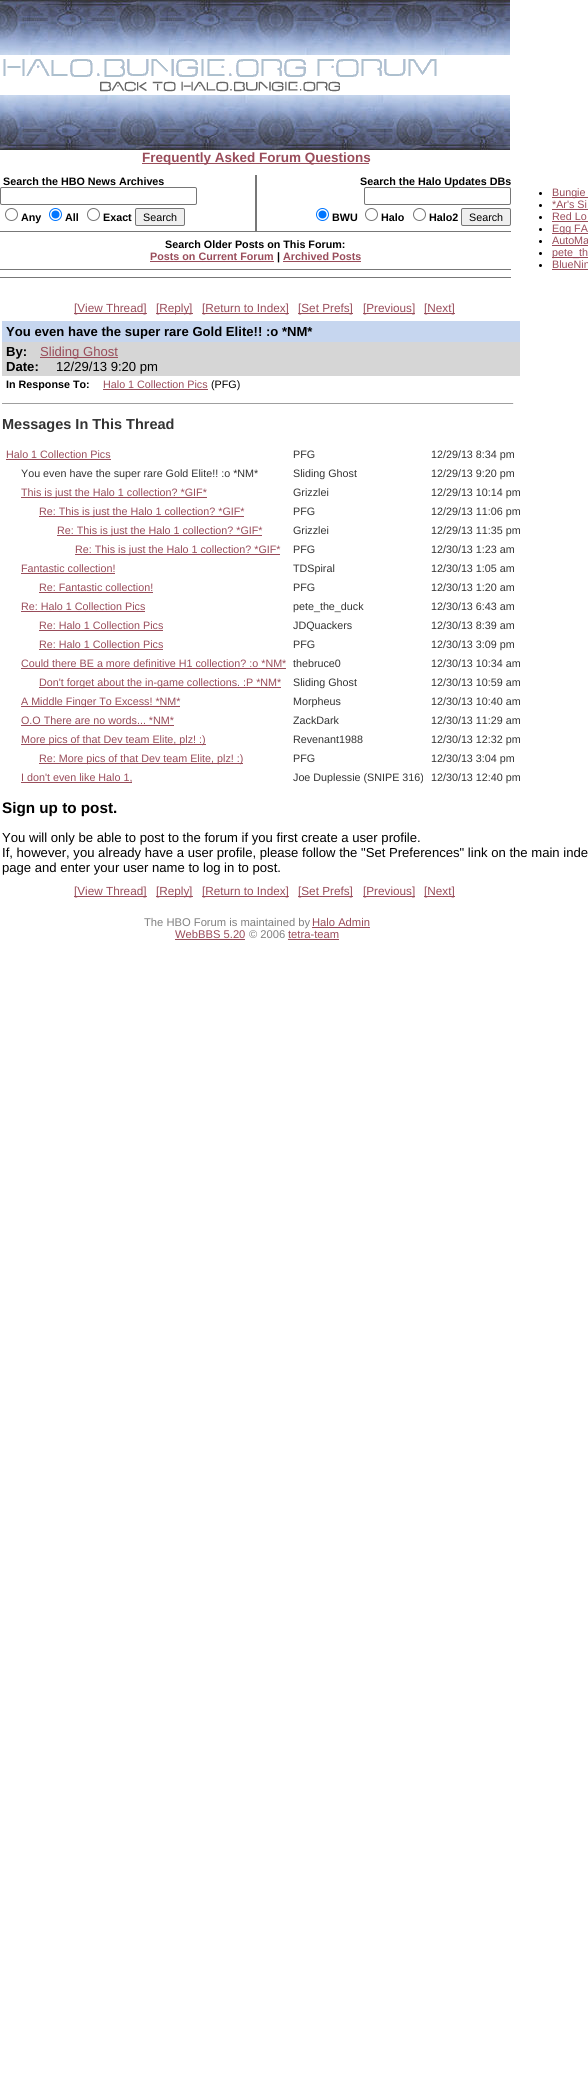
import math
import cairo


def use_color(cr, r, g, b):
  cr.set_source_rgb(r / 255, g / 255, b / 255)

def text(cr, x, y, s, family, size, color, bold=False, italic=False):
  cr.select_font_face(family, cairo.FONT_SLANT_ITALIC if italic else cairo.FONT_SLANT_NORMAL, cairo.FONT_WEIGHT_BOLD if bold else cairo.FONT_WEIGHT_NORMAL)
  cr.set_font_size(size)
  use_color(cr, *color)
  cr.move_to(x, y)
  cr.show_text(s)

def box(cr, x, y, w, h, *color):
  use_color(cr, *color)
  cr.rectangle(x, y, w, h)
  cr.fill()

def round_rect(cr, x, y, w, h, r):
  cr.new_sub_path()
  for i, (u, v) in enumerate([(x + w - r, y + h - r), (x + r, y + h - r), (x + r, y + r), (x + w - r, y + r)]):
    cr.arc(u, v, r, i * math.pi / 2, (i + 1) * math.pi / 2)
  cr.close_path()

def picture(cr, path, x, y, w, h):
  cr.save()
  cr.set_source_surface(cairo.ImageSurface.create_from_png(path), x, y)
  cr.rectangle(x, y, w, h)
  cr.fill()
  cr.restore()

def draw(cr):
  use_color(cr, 255, 255, 255)
  cr.paint()
  picture(cr, "img_01.png", 0, 0, 510, 55)
  picture(cr, "img_02.png", 3, 59, 434, 33)
  picture(cr, "img_03.png", 0, 95, 510, 55)
  box(cr, 142, 163, 227, 1, 153, 76, 90)
  round_rect(cr, 0.5, 187.5, 196, 17, 1.5)
  use_color(cr, 118, 118, 118)
  cr.set_line_width(1)
  cr.stroke()
  cr.arc(11.5, 214.5, 6, 0, 2 * math.pi)
  cr.stroke()
  cr.arc(55.5, 214.5, 6, 0, 2 * math.pi)
  use_color(cr, 0, 117, 255)
  cr.stroke()
  cr.arc(55.5, 214.5, 4, 0, 2 * math.pi)
  cr.fill()
  cr.arc(93.5, 214.5, 6, 0, 2 * math.pi)
  use_color(cr, 118, 118, 118)
  cr.stroke()
  use_color(cr, 239, 239, 239)
  round_rect(cr, 135.5, 208.5, 49, 17, 1.5)
  cr.fill_preserve()
  use_color(cr, 118, 118, 118)
  cr.stroke()
  box(cr, 255, 175, 2, 56, 119, 119, 119)
  cr.arc(322.5, 214.5, 6, 0, 2 * math.pi)
  use_color(cr, 0, 117, 255)
  cr.stroke()
  cr.arc(322.5, 214.5, 4, 0, 2 * math.pi)
  cr.fill()
  cr.arc(371.5, 214.5, 6, 0, 2 * math.pi)
  use_color(cr, 118, 118, 118)
  cr.stroke()
  cr.arc(419.5, 214.5, 6, 0, 2 * math.pi)
  cr.stroke()
  use_color(cr, 239, 239, 239)
  round_rect(cr, 461.5, 208.5, 49, 17, 1.5)
  cr.fill_preserve()
  use_color(cr, 118, 118, 118)
  cr.stroke()
  use_color(cr, 0, 0, 0)
  cr.arc(540.5, 193.5, 1.5, 0, 2 * math.pi)
  cr.fill()
  box(cr, 552, 197, 36, 1, 153, 76, 90)
  use_color(cr, 0, 0, 0)
  cr.arc(540.5, 205.5, 1.5, 0, 2 * math.pi)
  cr.fill()
  box(cr, 552, 209, 36, 1, 153, 76, 90)
  use_color(cr, 0, 0, 0)
  cr.arc(540.5, 217.5, 1.5, 0, 2 * math.pi)
  cr.fill()
  box(cr, 552, 221, 36, 1, 153, 76, 90)
  use_color(cr, 0, 0, 0)
  cr.arc(540.5, 229.5, 1.5, 0, 2 * math.pi)
  cr.fill()
  box(cr, 552, 233, 36, 1, 153, 76, 90)
  use_color(cr, 0, 0, 0)
  cr.arc(540.5, 241.5, 1.5, 0, 2 * math.pi)
  cr.fill()
  box(cr, 552, 245, 36, 1, 153, 76, 90)
  use_color(cr, 0, 0, 0)
  cr.arc(540.5, 253.5, 1.5, 0, 2 * math.pi)
  cr.fill()
  box(cr, 552, 257, 36, 1, 153, 76, 90)
  use_color(cr, 0, 0, 0)
  cr.arc(540.5, 265.5, 1.5, 0, 2 * math.pi)
  cr.fill()
  box(cr, 552, 269, 36, 1, 153, 76, 90)
  box(cr, 0, 231, 511, 1, 119, 119, 119)
  box(cr, 150, 261, 124, 1, 153, 76, 90)
  box(cr, 283, 261, 78, 1, 153, 76, 90)
  box(cr, 0, 269, 511, 1, 119, 119, 119)
  box(cr, 0, 277, 511, 1, 119, 119, 119)
  box(cr, 74, 313, 73, 1, 153, 76, 90)
  box(cr, 156, 313, 33, 1, 153, 76, 90)
  box(cr, 189, 313, 4, 1, 153, 76, 90)
  box(cr, 202, 313, 87, 1, 153, 76, 90)
  box(cr, 298, 313, 55, 1, 153, 76, 90)
  box(cr, 363, 313, 52, 1, 153, 76, 90)
  box(cr, 424, 313, 31, 1, 153, 76, 90)
  box(cr, 2, 321, 518, 21, 198, 214, 239)
  box(cr, 2, 342, 518, 34, 214, 214, 214)
  box(cr, 40, 357, 78, 1, 153, 76, 90)
  box(cr, 103, 389, 105, 1, 153, 76, 90)
  box(cr, 2, 403, 512, 1, 159, 159, 159)
  box(cr, 513, 403, 1, 1, 238, 238, 238)
  box(cr, 6, 459, 105, 1, 153, 76, 90)
  box(cr, 21, 497, 186, 1, 153, 76, 90)
  box(cr, 39, 516, 205, 1, 153, 76, 90)
  box(cr, 57, 535, 205, 1, 153, 76, 90)
  box(cr, 75, 554, 205, 1, 153, 76, 90)
  box(cr, 21, 573, 94, 1, 153, 76, 90)
  box(cr, 39, 592, 114, 1, 153, 76, 90)
  box(cr, 21, 611, 124, 1, 153, 76, 90)
  box(cr, 39, 630, 124, 1, 153, 76, 90)
  box(cr, 39, 649, 124, 1, 153, 76, 90)
  box(cr, 21, 668, 265, 1, 153, 76, 90)
  box(cr, 39, 687, 242, 1, 153, 76, 90)
  box(cr, 21, 706, 159, 1, 153, 76, 90)
  box(cr, 21, 725, 153, 1, 153, 76, 90)
  box(cr, 21, 744, 185, 1, 153, 76, 90)
  box(cr, 39, 763, 204, 1, 153, 76, 90)
  box(cr, 21, 782, 111, 1, 153, 76, 90)
  box(cr, 74, 896, 73, 1, 153, 76, 90)
  box(cr, 156, 896, 33, 1, 153, 76, 90)
  box(cr, 189, 896, 4, 1, 153, 76, 90)
  box(cr, 202, 896, 87, 1, 153, 76, 90)
  box(cr, 298, 896, 55, 1, 153, 76, 90)
  box(cr, 363, 896, 52, 1, 153, 76, 90)
  box(cr, 424, 896, 31, 1, 153, 76, 90)
  box(cr, 312, 927, 58, 1, 153, 76, 90)
  box(cr, 175, 939, 70, 1, 153, 76, 90)
  box(cr, 288, 939, 51, 1, 153, 76, 90)
  text(cr, 142, 162, "Frequently Asked Forum Questions", "Liberation Sans", 13.5, (153, 76, 90), bold=True)
  text(cr, 3, 185, "Search the HBO News Archives", "Liberation Sans", 10.75, (0, 0, 0), bold=True)
  text(cr, 21, 221, "Any", "Liberation Sans", 10.75, (0, 0, 0), bold=True)
  text(cr, 65, 221, "All", "Liberation Sans", 10.75, (0, 0, 0), bold=True)
  text(cr, 103, 221, "Exact", "Liberation Sans", 10.75, (0, 0, 0), bold=True)
  text(cr, 143, 221, "Search", "Liberation Sans", 10.75, (0, 0, 0))
  text(cr, 360, 185, "Search the Halo Updates DBs", "Liberation Sans", 10.75, (0, 0, 0), bold=True)
  use_color(cr, 255, 255, 255)
  round_rect(cr, 364.5, 187.5, 146, 17, 1.5)
  cr.fill_preserve()
  use_color(cr, 118, 118, 118)
  cr.stroke()
  text(cr, 332, 221, "BWU", "Liberation Sans", 10.75, (0, 0, 0), bold=True)
  text(cr, 381, 221, "Halo", "Liberation Sans", 10.75, (0, 0, 0), bold=True)
  text(cr, 429, 221, "Halo2", "Liberation Sans", 10.75, (0, 0, 0), bold=True)
  text(cr, 469, 221, "Search", "Liberation Sans", 10.75, (0, 0, 0))
  text(cr, 552, 196, "Bungie", "Liberation Sans", 10.75, (153, 76, 90))
  text(cr, 552, 208, "*Ar's Si", "Liberation Sans", 10.75, (153, 76, 90))
  text(cr, 552, 220, "Red Lo", "Liberation Sans", 10.75, (153, 76, 90))
  text(cr, 552, 232, "Egg FA", "Liberation Sans", 10.75, (153, 76, 90))
  text(cr, 552, 244, "AutoMa", "Liberation Sans", 10.75, (153, 76, 90))
  text(cr, 552, 256, "pete_th", "Liberation Sans", 10.75, (153, 76, 90))
  text(cr, 552, 268, "BlueNin", "Liberation Sans", 10.75, (153, 76, 90))
  text(cr, 165, 248, "Search Older Posts on This Forum:", "Liberation Sans", 10.75, (0, 0, 0), bold=True)
  text(cr, 150, 260, "Posts on Current Forum", "Liberation Sans", 10.75, (153, 76, 90), bold=True)
  text(cr, 277, 260, "|", "Liberation Sans", 10.75, (0, 0, 0), bold=True)
  text(cr, 283, 260, "Archived Posts", "Liberation Sans", 10.75, (153, 76, 90), bold=True)
  text(cr, 74, 312, "[View Thread]", "Liberation Sans", 11.75, (153, 76, 90))
  text(cr, 156, 312, "[Reply", "Liberation Sans", 11.75, (153, 76, 90))
  text(cr, 189, 312, "]", "Liberation Sans", 11.75, (153, 76, 90))
  text(cr, 202, 312, "[Return to Index]", "Liberation Sans", 11.75, (153, 76, 90))
  text(cr, 298, 312, "[Set Prefs]", "Liberation Sans", 11.75, (153, 76, 90))
  text(cr, 363, 312, "[Previous]", "Liberation Sans", 11.75, (153, 76, 90))
  text(cr, 424, 312, "[Next]", "Liberation Sans", 11.75, (153, 76, 90))
  text(cr, 6, 336, "You even have the super rare Gold Elite!! :o *NM*", "Liberation Sans", 13.1, (0, 0, 0), bold=True)
  text(cr, 6, 356, "By:", "Liberation Sans", 13.1, (0, 0, 0), bold=True)
  text(cr, 40, 356, "Sliding Ghost", "Liberation Sans", 13.1, (153, 76, 90))
  text(cr, 6, 371, "Date:", "Liberation Sans", 13.1, (0, 0, 0), bold=True)
  text(cr, 56, 371, "12/29/13 9:20 pm", "Liberation Sans", 13.1, (0, 0, 0))
  text(cr, 6, 388, "In Response To:", "Liberation Sans", 10.75, (0, 0, 0), bold=True)
  text(cr, 103, 388, "Halo 1 Collection Pics", "Liberation Sans", 10.75, (153, 76, 90))
  text(cr, 211, 388, "(PFG)", "Liberation Sans", 10.75, (0, 0, 0))
  text(cr, 2, 429, "Messages In This Thread", "Liberation Sans", 14.5, (51, 51, 51), bold=True)
  text(cr, 6, 458, "Halo 1 Collection Pics", "Liberation Sans", 10.75, (153, 76, 90))
  text(cr, 293, 458, "PFG", "Liberation Sans", 10.75, (51, 51, 51))
  text(cr, 431, 458, "12/29/13 8:34 pm", "Liberation Sans", 10.75, (51, 51, 51))
  text(cr, 21, 477, "You even have the super rare Gold Elite!! :o *NM*", "Liberation Sans", 10.75, (51, 51, 51))
  text(cr, 293, 477, "Sliding Ghost", "Liberation Sans", 10.75, (51, 51, 51))
  text(cr, 431, 477, "12/29/13 9:20 pm", "Liberation Sans", 10.75, (51, 51, 51))
  text(cr, 21, 496, "This is just the Halo 1 collection? *GIF*", "Liberation Sans", 10.75, (153, 76, 90))
  text(cr, 293, 496, "Grizzlei", "Liberation Sans", 10.75, (51, 51, 51))
  text(cr, 431, 496, "12/29/13 10:14 pm", "Liberation Sans", 10.75, (51, 51, 51))
  text(cr, 39, 515, "Re: This is just the Halo 1 collection? *GIF*", "Liberation Sans", 10.75, (153, 76, 90))
  text(cr, 293, 515, "PFG", "Liberation Sans", 10.75, (51, 51, 51))
  text(cr, 431, 515, "12/29/13 11:06 pm", "Liberation Sans", 10.75, (51, 51, 51))
  text(cr, 57, 534, "Re: This is just the Halo 1 collection? *GIF*", "Liberation Sans", 10.75, (153, 76, 90))
  text(cr, 293, 534, "Grizzlei", "Liberation Sans", 10.75, (51, 51, 51))
  text(cr, 431, 534, "12/29/13 11:35 pm", "Liberation Sans", 10.75, (51, 51, 51))
  text(cr, 75, 553, "Re: This is just the Halo 1 collection? *GIF*", "Liberation Sans", 10.75, (153, 76, 90))
  text(cr, 293, 553, "PFG", "Liberation Sans", 10.75, (51, 51, 51))
  text(cr, 431, 553, "12/30/13 1:23 am", "Liberation Sans", 10.75, (51, 51, 51))
  text(cr, 21, 572, "Fantastic collection!", "Liberation Sans", 10.75, (153, 76, 90))
  text(cr, 293, 572, "TDSpiral", "Liberation Sans", 10.75, (51, 51, 51))
  text(cr, 431, 572, "12/30/13 1:05 am", "Liberation Sans", 10.75, (51, 51, 51))
  text(cr, 39, 591, "Re: Fantastic collection!", "Liberation Sans", 10.75, (153, 76, 90))
  text(cr, 293, 591, "PFG", "Liberation Sans", 10.75, (51, 51, 51))
  text(cr, 431, 591, "12/30/13 1:20 am", "Liberation Sans", 10.75, (51, 51, 51))
  text(cr, 21, 610, "Re: Halo 1 Collection Pics", "Liberation Sans", 10.75, (153, 76, 90))
  text(cr, 293, 610, "pete_the_duck", "Liberation Sans", 10.75, (51, 51, 51))
  text(cr, 431, 610, "12/30/13 6:43 am", "Liberation Sans", 10.75, (51, 51, 51))
  text(cr, 39, 629, "Re: Halo 1 Collection Pics", "Liberation Sans", 10.75, (153, 76, 90))
  text(cr, 293, 629, "JDQuackers", "Liberation Sans", 10.75, (51, 51, 51))
  text(cr, 431, 629, "12/30/13 8:39 am", "Liberation Sans", 10.75, (51, 51, 51))
  text(cr, 39, 648, "Re: Halo 1 Collection Pics", "Liberation Sans", 10.75, (153, 76, 90))
  text(cr, 293, 648, "PFG", "Liberation Sans", 10.75, (51, 51, 51))
  text(cr, 431, 648, "12/30/13 3:09 pm", "Liberation Sans", 10.75, (51, 51, 51))
  text(cr, 21, 667, "Could there BE a more definitive H1 collection? :o *NM*", "Liberation Sans", 10.75, (153, 76, 90))
  text(cr, 293, 667, "thebruce0", "Liberation Sans", 10.75, (51, 51, 51))
  text(cr, 431, 667, "12/30/13 10:34 am", "Liberation Sans", 10.75, (51, 51, 51))
  text(cr, 39, 686, "Don't forget about the in-game collections. :P *NM*", "Liberation Sans", 10.75, (153, 76, 90))
  text(cr, 293, 686, "Sliding Ghost", "Liberation Sans", 10.75, (51, 51, 51))
  text(cr, 431, 686, "12/30/13 10:59 am", "Liberation Sans", 10.75, (51, 51, 51))
  text(cr, 21, 705, "A Middle Finger To Excess! *NM*", "Liberation Sans", 10.75, (153, 76, 90))
  text(cr, 293, 705, "Morpheus", "Liberation Sans", 10.75, (51, 51, 51))
  text(cr, 431, 705, "12/30/13 10:40 am", "Liberation Sans", 10.75, (51, 51, 51))
  text(cr, 21, 724, "O.O There are no words... *NM*", "Liberation Sans", 10.75, (153, 76, 90))
  text(cr, 293, 724, "ZackDark", "Liberation Sans", 10.75, (51, 51, 51))
  text(cr, 431, 724, "12/30/13 11:29 am", "Liberation Sans", 10.75, (51, 51, 51))
  text(cr, 21, 743, "More pics of that Dev team Elite, plz! :)", "Liberation Sans", 10.75, (153, 76, 90))
  text(cr, 293, 743, "Revenant1988", "Liberation Sans", 10.75, (51, 51, 51))
  text(cr, 431, 743, "12/30/13 12:32 pm", "Liberation Sans", 10.75, (51, 51, 51))
  text(cr, 39, 762, "Re: More pics of that Dev team Elite, plz! :)", "Liberation Sans", 10.75, (153, 76, 90))
  text(cr, 293, 762, "PFG", "Liberation Sans", 10.75, (51, 51, 51))
  text(cr, 431, 762, "12/30/13 3:04 pm", "Liberation Sans", 10.75, (51, 51, 51))
  text(cr, 21, 781, "I don't even like Halo 1,", "Liberation Sans", 10.75, (153, 76, 90))
  text(cr, 293, 781, "Joe Duplessie (SNIPE 316)", "Liberation Sans", 10.75, (51, 51, 51))
  text(cr, 431, 781, "12/30/13 12:40 pm", "Liberation Sans", 10.75, (51, 51, 51))
  text(cr, 2, 813, "Sign up to post.", "Liberation Sans", 15.25, (0, 0, 0), bold=True)
  text(cr, 2, 842, "You will only be able to post to the forum if you first create a user profile.", "Liberation Sans", 13.1, (0, 0, 0))
  text(cr, 2, 857, "If, however, you already have a user profile, please follow the \"Set Preferences\" link on the main inde", "Liberation Sans", 13.1, (0, 0, 0))
  text(cr, 2, 872, "page and enter your user name to log in to post.", "Liberation Sans", 13.1, (0, 0, 0))
  text(cr, 74, 895, "[View Thread]", "Liberation Sans", 11.75, (153, 76, 90))
  text(cr, 156, 895, "[Reply", "Liberation Sans", 11.75, (153, 76, 90))
  text(cr, 189, 895, "]", "Liberation Sans", 11.75, (153, 76, 90))
  text(cr, 202, 895, "[Return to Index]", "Liberation Sans", 11.75, (153, 76, 90))
  text(cr, 298, 895, "[Set Prefs]", "Liberation Sans", 11.75, (153, 76, 90))
  text(cr, 363, 895, "[Previous]", "Liberation Sans", 11.75, (153, 76, 90))
  text(cr, 424, 895, "[Next]", "Liberation Sans", 11.75, (153, 76, 90))
  text(cr, 144, 926, "The HBO Forum is maintained by", "Liberation Sans", 11.2, (128, 128, 128))
  text(cr, 312, 926, "Halo Admin", "Liberation Sans", 11.2, (153, 76, 90))
  text(cr, 175, 938, "WebBBS 5.20", "Liberation Sans", 11.2, (153, 76, 90))
  text(cr, 249, 938, "© 2006", "Liberation Sans", 11.2, (128, 128, 128))
  text(cr, 288, 938, "tetra-team", "Liberation Sans", 11.2, (153, 76, 90))


surface = cairo.ImageSurface(cairo.FORMAT_RGB24, 588, 2086)
cr = cairo.Context(surface)
options = cairo.FontOptions()
options.set_hint_metrics(cairo.HINT_METRICS_OFF)
options.set_hint_style(cairo.HINT_STYLE_NONE)
cr.set_font_options(options)
cr.set_miter_limit(4)
draw(cr)
surface.write_to_png("out.png")
